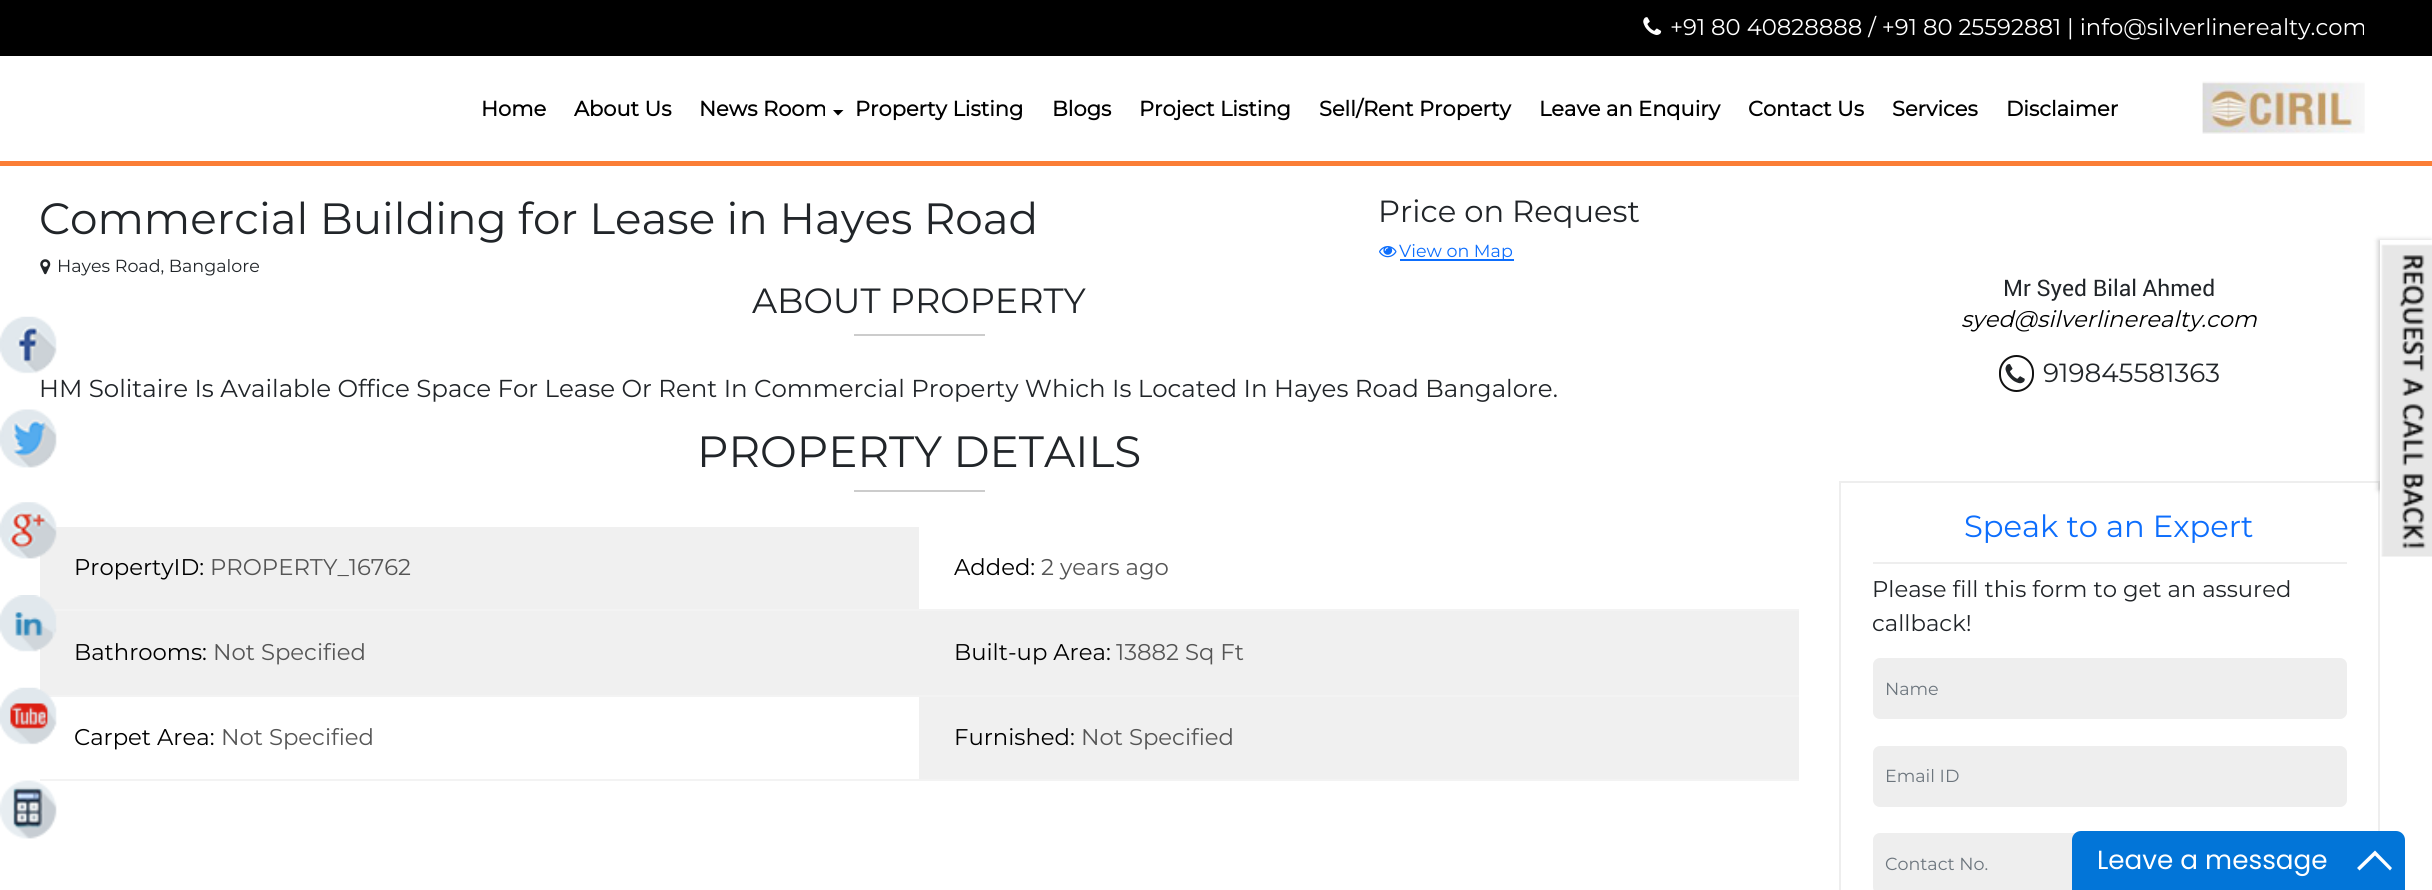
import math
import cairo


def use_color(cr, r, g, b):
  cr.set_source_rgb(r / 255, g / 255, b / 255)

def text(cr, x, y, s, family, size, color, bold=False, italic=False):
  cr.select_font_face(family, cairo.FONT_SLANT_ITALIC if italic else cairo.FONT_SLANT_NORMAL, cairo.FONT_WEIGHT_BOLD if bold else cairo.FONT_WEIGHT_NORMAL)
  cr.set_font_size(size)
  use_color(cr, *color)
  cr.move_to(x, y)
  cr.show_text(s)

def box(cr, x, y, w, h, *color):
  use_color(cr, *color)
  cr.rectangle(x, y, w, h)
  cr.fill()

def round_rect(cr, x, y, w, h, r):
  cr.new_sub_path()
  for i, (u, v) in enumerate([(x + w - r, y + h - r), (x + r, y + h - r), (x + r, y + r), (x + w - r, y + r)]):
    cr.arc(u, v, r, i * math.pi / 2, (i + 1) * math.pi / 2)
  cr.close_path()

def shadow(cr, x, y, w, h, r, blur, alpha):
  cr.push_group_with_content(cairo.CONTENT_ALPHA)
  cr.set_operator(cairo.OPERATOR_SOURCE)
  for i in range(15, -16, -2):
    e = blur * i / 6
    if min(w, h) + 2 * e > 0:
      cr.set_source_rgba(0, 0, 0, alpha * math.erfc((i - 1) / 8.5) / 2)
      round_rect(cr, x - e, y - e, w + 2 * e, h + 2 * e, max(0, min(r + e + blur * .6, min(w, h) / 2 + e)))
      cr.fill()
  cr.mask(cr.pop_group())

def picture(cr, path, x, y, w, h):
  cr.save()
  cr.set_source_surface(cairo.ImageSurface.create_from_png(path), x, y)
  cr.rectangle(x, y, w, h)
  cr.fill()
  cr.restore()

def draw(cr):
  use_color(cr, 255, 255, 255)
  cr.paint()
  box(cr, 0, 0, 2432, 56, 0, 0, 0)
  picture(cr, "img_01.png", 1643, 17, 19, 18)
  box(cr, 0, 161, 2432, 5, 251, 126, 54)
  use_color(cr, 0, 0, 0)
  cr.new_path()
  cr.move_to(833, 110)
  cr.line_to(843.5, 110)
  cr.line_to(838, 115.5)
  cr.close_path()
  cr.fill()
  picture(cr, "img_02.png", 2202, 81, 163, 53)
  picture(cr, "img_03.png", 0, 316, 57, 58)
  picture(cr, "img_04.png", 0, 409, 57, 59)
  box(cr, 40, 527, 879, 82, 240, 240, 240)
  picture(cr, "img_05.png", 0, 502, 57, 57)
  box(cr, 51, 609, 1748, 2, 243, 243, 243)
  box(cr, 40, 611, 1759, 84, 240, 240, 240)
  picture(cr, "img_06.png", 0, 595, 57, 57)
  box(cr, 40, 695, 1759, 2, 243, 243, 243)
  picture(cr, "img_07.png", 0, 687, 57, 58)
  box(cr, 40, 779, 1759, 2, 243, 243, 243)
  picture(cr, "img_08.png", 0, 780, 57, 59)
  picture(cr, "img_09.png", 40, 259, 11, 16)
  picture(cr, "img_10.png", 1379, 246, 18, 12)
  box(cr, 1400, 259, 114, 2, 13, 110, 253)
  box(cr, 854, 334, 131, 2, 204, 204, 204)
  box(cr, 854, 490, 131, 2, 204, 204, 204)
  box(cr, 919, 697, 880, 82, 240, 240, 240)
  round_rect(cr, 2000, 356, 33, 35, 16.5)
  use_color(cr, 17, 17, 17)
  cr.stroke()
  picture(cr, "img_11.png", 2005, 364, 20, 20)
  cr.rectangle(1840, 482, 539, 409)
  use_color(cr, 238, 238, 238)
  cr.stroke()
  box(cr, 1873, 562, 474, 2, 238, 238, 238)
  round_rect(cr, 1873, 658, 474, 61, 7)
  cr.fill()
  round_rect(cr, 1873, 746, 474, 61, 7)
  cr.fill()
  round_rect(cr, 1873, 833, 474, 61, 7)
  cr.fill()
  cr.save()
  cr.set_fill_rule(cairo.FILL_RULE_EVEN_ODD)
  cr.new_path()
  cr.move_to(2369, 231)
  cr.line_to(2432, 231)
  cr.line_to(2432, 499)
  cr.line_to(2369, 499)
  cr.close_path()
  cr.move_to(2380, 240)
  cr.line_to(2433, 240)
  cr.line_to(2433, 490)
  cr.line_to(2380, 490)
  cr.close_path()
  cr.clip()
  use_color(cr, 0, 0, 0)
  shadow(cr, 2378, 240, 53, 250, 0, 2.5, 0.2)
  cr.restore()
  picture(cr, "img_12.png", 2380, 244, 52, 313)
  use_color(cr, 2, 117, 216)
  cr.new_path()
  cr.move_to(2081, 831)
  cr.line_to(2396, 831)
  cr.curve_to(2401, 831, 2405, 835, 2405, 840)
  cr.line_to(2405, 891)
  cr.line_to(2072, 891)
  cr.line_to(2072, 840)
  cr.curve_to(2072, 835, 2076, 831, 2081, 831)
  cr.close_path()
  cr.fill()
  use_color(cr, 255, 255, 255)
  cr.new_path()
  cr.move_to(2375, 850.5)
  cr.line_to(2392, 868)
  cr.line_to(2390, 870.5)
  cr.line_to(2375, 855.5)
  cr.line_to(2359.5, 870.5)
  cr.line_to(2357, 868)
  cr.close_path()
  cr.fill()
  text(cr, 1670, 35, "+91 80 40828888 / +91 80 25592881 | info@silverlinerealty.com", "Montserrat Thin", 22.75, (255, 255, 255))
  text(cr, 481, 116, "Home", "Montserrat", 21, (0, 0, 0), bold=True)
  text(cr, 574, 116, "About Us", "Montserrat", 21, (0, 0, 0), bold=True)
  text(cr, 699, 116, "News Room", "Montserrat", 21, (0, 0, 0), bold=True)
  text(cr, 855, 116, "Property Listing", "Montserrat", 21, (0, 0, 0), bold=True)
  text(cr, 1052, 116, "Blogs", "Montserrat", 21, (0, 0, 0), bold=True)
  text(cr, 1139, 116, "Project Listing", "Montserrat", 21, (0, 0, 0), bold=True)
  text(cr, 1319, 116, "Sell/Rent Property", "Montserrat", 21, (0, 0, 0), bold=True)
  text(cr, 1539, 116, "Leave an Enquiry", "Montserrat", 21, (0, 0, 0), bold=True)
  text(cr, 1748, 116, "Contact Us", "Montserrat", 21, (0, 0, 0), bold=True)
  text(cr, 1892, 116, "Services", "Montserrat", 21, (0, 0, 0), bold=True)
  text(cr, 2006, 116, "Disclaimer", "Montserrat", 21, (0, 0, 0), bold=True)
  text(cr, 39, 234, "Commercial Building for Lease in Hayes Road", "Montserrat Thin", 43.75, (33, 37, 41))
  text(cr, 57, 272, "Hayes Road, Bangalore", "Montserrat Thin", 17.5, (33, 37, 41))
  text(cr, 1378, 222, "Price on Request", "Montserrat Thin", 30.6, (33, 37, 41))
  text(cr, 1399, 257, "View on Map", "Montserrat Thin", 17.5, (13, 110, 253))
  text(cr, 752, 313, "ABOUT PROPERTY", "Montserrat Thin", 35, (33, 37, 41))
  text(cr, 39, 397, "HM Solitaire Is Available Office Space For Lease Or Rent In Commercial Property Which Is Located In Hayes Road Bangalore.", "Montserrat Thin", 24.5, (33, 37, 41))
  text(cr, 697, 467, "PROPERTY DETAILS", "Montserrat Thin", 43.75, (33, 37, 41))
  text(cr, 74, 575, "PropertyID:", "Montserrat Thin", 22.75, (0, 0, 0))
  text(cr, 210, 575, "PROPERTY_16762", "Montserrat Thin", 22.75, (85, 85, 85))
  text(cr, 954, 575, "Added:", "Montserrat Thin", 22.75, (0, 0, 0))
  text(cr, 1041, 575, "2 years ago", "Montserrat Thin", 22.75, (85, 85, 85))
  text(cr, 74, 660, "Bathrooms:", "Montserrat Thin", 22.75, (0, 0, 0))
  text(cr, 213, 660, "Not Specified", "Montserrat Thin", 22.75, (85, 85, 85))
  text(cr, 954, 660, "Built-up Area:", "Montserrat Thin", 22.75, (0, 0, 0))
  text(cr, 1116, 660, "13882 Sq Ft", "Montserrat Thin", 22.75, (85, 85, 85))
  text(cr, 74, 745, "Carpet Area:", "Montserrat Thin", 22.75, (0, 0, 0))
  text(cr, 221, 745, "Not Specified", "Montserrat Thin", 22.75, (85, 85, 85))
  text(cr, 954, 745, "Furnished:", "Montserrat Thin", 22.75, (0, 0, 0))
  text(cr, 1081, 745, "Not Specified", "Montserrat Thin", 22.75, (85, 85, 85))
  text(cr, 2003, 296, "Mr Syed Bilal Ahmed", "Roboto", 22.75, (33, 37, 41))
  text(cr, 1961, 327, "syed@silverlinerealty.com", "Montserrat Thin", 22.75, (0, 0, 0), italic=True)
  text(cr, 2043, 382, "919845581363", "Montserrat Thin", 26.25, (33, 37, 41))
  text(cr, 1964, 537, "Speak to an Expert", "Montserrat Thin", 30.6, (13, 110, 253))
  text(cr, 1872, 597, "Please fill this form to get an assured", "Montserrat Thin", 22.75, (33, 37, 41))
  text(cr, 1872, 631, "callback!", "Montserrat Thin", 22.75, (33, 37, 41))
  text(cr, 1885, 695, "Name", "Montserrat Thin", 17.5, (108, 117, 125))
  text(cr, 1885, 782, "Email ID", "Montserrat Thin", 17.5, (108, 117, 125))
  text(cr, 1885, 870, "Contact No.", "Montserrat Thin", 17.5, (108, 117, 125))
  text(cr, 2097, 869, "Leave a message", "Poppins", 26.25, (255, 255, 255))


surface = cairo.ImageSurface(cairo.FORMAT_RGB24, 2432, 890)
cr = cairo.Context(surface)
options = cairo.FontOptions()
options.set_hint_metrics(cairo.HINT_METRICS_OFF)
options.set_hint_style(cairo.HINT_STYLE_NONE)
cr.set_font_options(options)
cr.set_miter_limit(4)
draw(cr)
surface.write_to_png("out.png")
